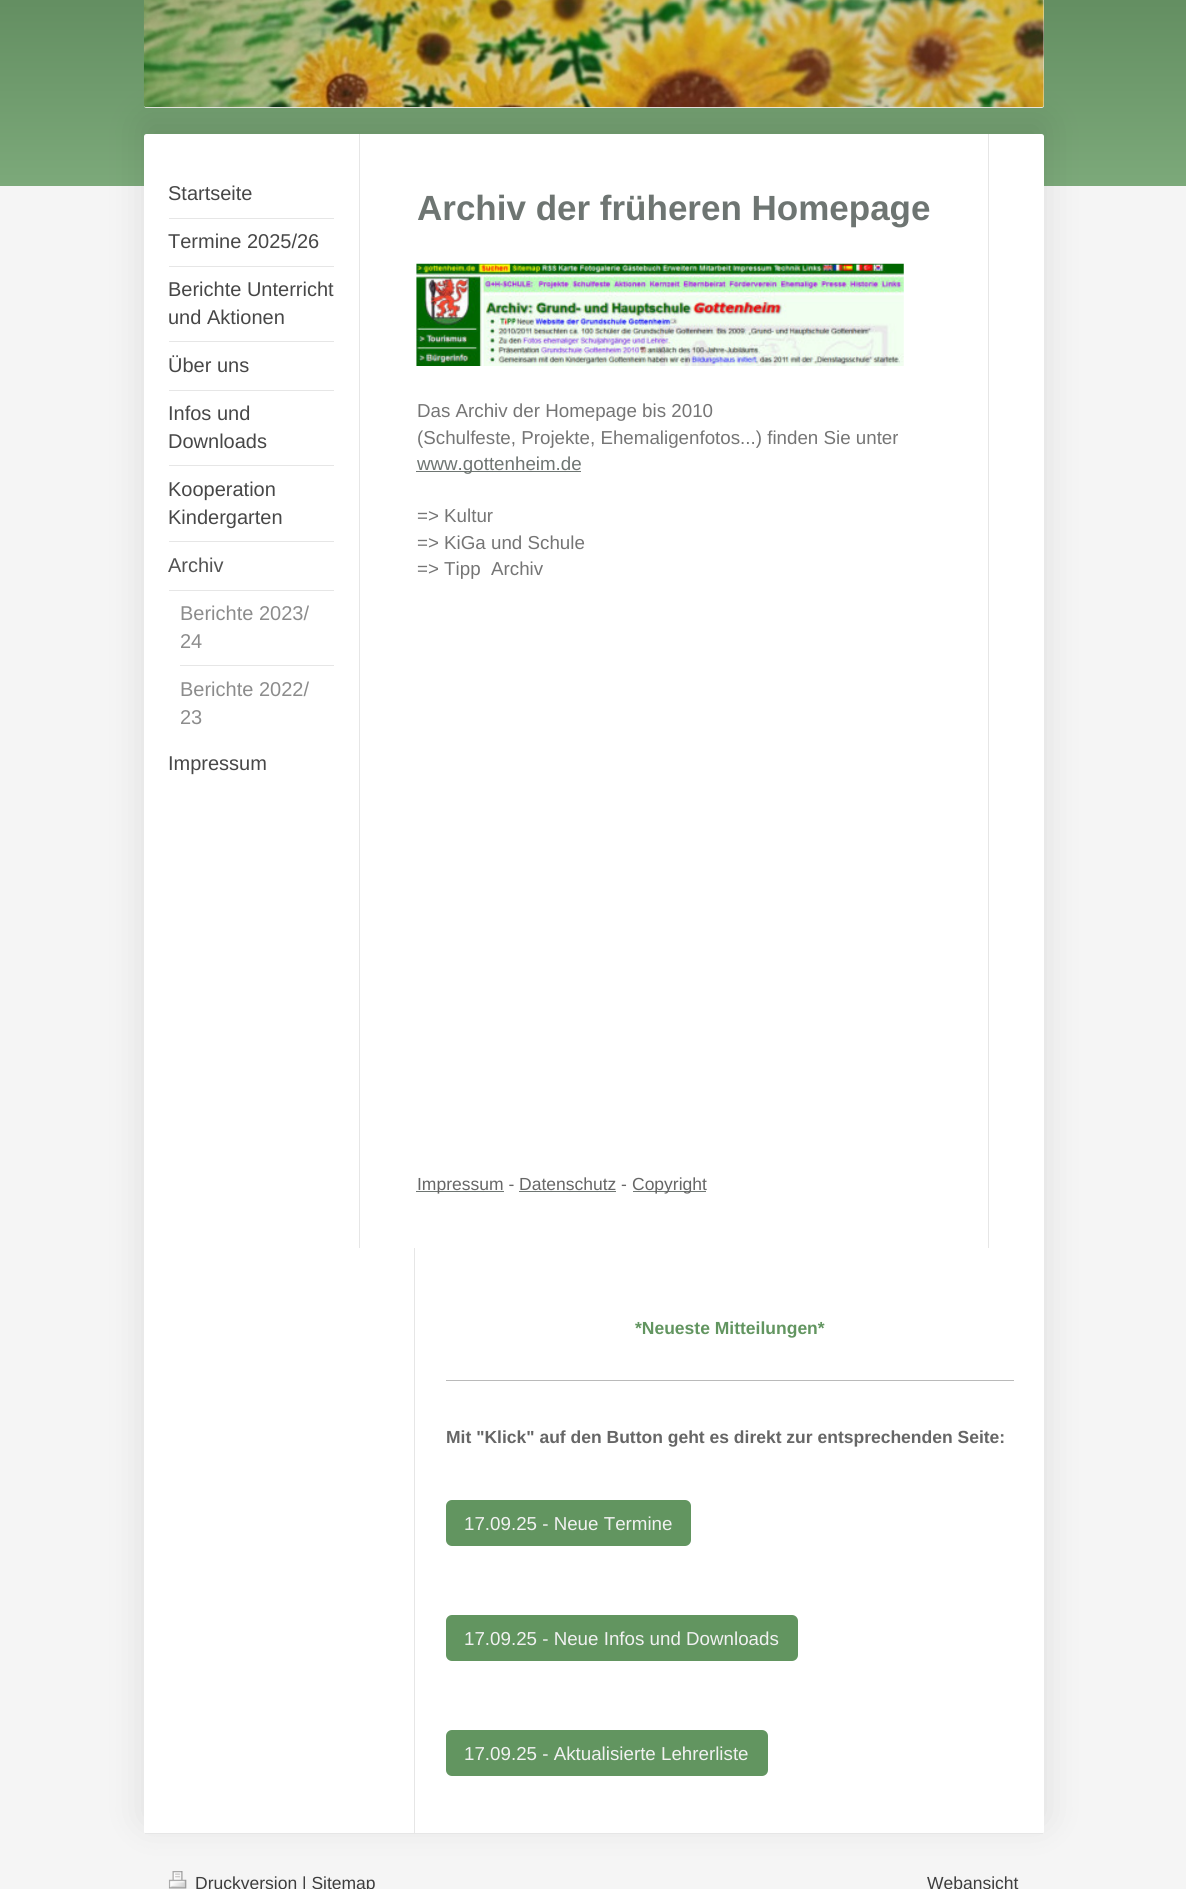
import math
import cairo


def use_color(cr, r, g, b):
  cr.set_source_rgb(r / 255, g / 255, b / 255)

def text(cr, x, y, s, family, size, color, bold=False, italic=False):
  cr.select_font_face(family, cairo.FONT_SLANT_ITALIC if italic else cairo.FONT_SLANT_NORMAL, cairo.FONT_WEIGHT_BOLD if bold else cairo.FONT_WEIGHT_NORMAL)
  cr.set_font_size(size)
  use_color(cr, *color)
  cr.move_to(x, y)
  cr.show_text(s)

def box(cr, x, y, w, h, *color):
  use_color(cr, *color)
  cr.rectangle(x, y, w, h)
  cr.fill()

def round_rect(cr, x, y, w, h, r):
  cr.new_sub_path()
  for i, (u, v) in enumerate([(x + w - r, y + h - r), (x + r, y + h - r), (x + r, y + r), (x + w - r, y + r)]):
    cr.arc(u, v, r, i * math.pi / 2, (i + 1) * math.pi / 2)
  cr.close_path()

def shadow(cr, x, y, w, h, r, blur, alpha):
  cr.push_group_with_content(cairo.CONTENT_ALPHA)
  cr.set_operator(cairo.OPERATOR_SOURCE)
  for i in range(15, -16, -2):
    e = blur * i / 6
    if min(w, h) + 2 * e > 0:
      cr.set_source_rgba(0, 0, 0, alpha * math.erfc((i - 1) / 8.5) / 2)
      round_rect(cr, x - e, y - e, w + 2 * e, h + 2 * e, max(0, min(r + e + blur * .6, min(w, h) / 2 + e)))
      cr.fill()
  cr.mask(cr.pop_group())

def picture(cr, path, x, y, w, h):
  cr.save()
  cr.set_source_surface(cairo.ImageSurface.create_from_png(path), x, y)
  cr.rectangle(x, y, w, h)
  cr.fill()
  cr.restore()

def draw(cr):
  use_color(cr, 245, 245, 245)
  cr.paint()
  gradient = cairo.LinearGradient(0, 186, 0, -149)
  gradient.add_color_stop_rgba(0, 0.486, 0.663, 0.478, 1)
  gradient.add_color_stop_rgba(1, 0.314, 0.475, 0.306, 1)
  cr.set_source(gradient)
  cr.rectangle(0, 0, 1186, 186)
  cr.fill()
  use_color(cr, 238, 238, 238)
  round_rect(cr, 144, -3, 900, 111, 2.5)
  cr.fill()
  picture(cr, "img_01.png", 143, 0, 901, 108)
  use_color(cr, 0, 0, 0)
  shadow(cr, 144, 121, 900, 1700, 2.5, 19, 0.1)
  use_color(cr, 255, 255, 255)
  round_rect(cr, 144, 134, 900, 1700, 2.5)
  cr.fill()
  box(cr, 145, 1833, 898, 1, 230, 230, 230)
  box(cr, 169, 218, 165, 1, 230, 230, 230)
  box(cr, 169, 266, 165, 1, 230, 230, 230)
  box(cr, 169, 341, 165, 1, 230, 230, 230)
  box(cr, 169, 390, 165, 1, 230, 230, 230)
  box(cr, 169, 465, 165, 1, 230, 230, 230)
  box(cr, 169, 541, 165, 1, 230, 230, 230)
  box(cr, 169, 590, 165, 1, 230, 230, 230)
  box(cr, 180, 665, 154, 1, 230, 230, 230)
  box(cr, 988, 134, 1, 1114, 230, 230, 230)
  box(cr, 359, 134, 1, 1114, 230, 230, 230)
  picture(cr, "img_02.png", 416, 263, 488, 103)
  box(cr, 416, 471, 165, 1, 110, 117, 114)
  box(cr, 416, 1191, 88, 1, 110, 117, 114)
  box(cr, 633, 1191, 73, 1, 110, 117, 114)
  box(cr, 414, 1248, 1, 585, 230, 230, 230)
  box(cr, 446, 1380, 568, 1, 186, 186, 186)
  use_color(cr, 98, 149, 96)
  round_rect(cr, 446, 1500, 245, 46, 6)
  cr.fill()
  round_rect(cr, 446, 1615, 352, 46, 6)
  cr.fill()
  round_rect(cr, 446, 1730, 322, 46, 6)
  cr.fill()
  picture(cr, "img_03.png", 168, 1871, 19, 18)
  text(cr, 168, 200, "Startseite", "Liberation Sans", 20, (71, 71, 71))
  text(cr, 168, 248, "Termine 2025/26", "Liberation Sans", 20, (71, 71, 71))
  text(cr, 168, 296, "Berichte Unterricht", "Liberation Sans", 20, (71, 71, 71))
  text(cr, 168, 324, "und Aktionen", "Liberation Sans", 20, (71, 71, 71))
  text(cr, 168, 372, "Über uns", "Liberation Sans", 20, (71, 71, 71))
  text(cr, 168, 420, "Infos und", "Liberation Sans", 20, (71, 71, 71))
  text(cr, 168, 448, "Downloads", "Liberation Sans", 20, (71, 71, 71))
  text(cr, 168, 496, "Kooperation", "Liberation Sans", 20, (71, 71, 71))
  text(cr, 168, 524, "Kindergarten", "Liberation Sans", 20, (71, 71, 71))
  text(cr, 168, 572, "Archiv", "Liberation Sans", 20, (83, 83, 83))
  text(cr, 180, 620, "Berichte 2023/", "Liberation Sans", 20, (140, 140, 140))
  text(cr, 180, 648, "24", "Liberation Sans", 20, (140, 140, 140))
  text(cr, 180, 696, "Berichte 2022/", "Liberation Sans", 20, (140, 140, 140))
  text(cr, 180, 724, "23", "Liberation Sans", 20, (140, 140, 140))
  text(cr, 168, 770, "Impressum", "Liberation Sans", 20, (71, 71, 71))
  text(cr, 417, 220, "Archiv der früheren Homepage", "Liberation Sans", 35, (110, 117, 114), bold=True)
  text(cr, 417, 417, "Das Archiv der Homepage bis 2010", "Liberation Sans", 18.75, (117, 117, 117))
  text(cr, 417, 444, "(Schulfeste, Projekte, Ehemaligenfotos...) finden Sie unter", "Liberation Sans", 18.75, (117, 117, 117))
  text(cr, 417, 470, "www.gottenheim.de", "Liberation Sans", 18.75, (110, 117, 114))
  text(cr, 417, 522, "=> Kultur", "Liberation Sans", 18.75, (117, 117, 117))
  text(cr, 417, 549, "=> KiGa und Schule", "Liberation Sans", 18.75, (117, 117, 117))
  text(cr, 417, 575, "=> Tipp  Archiv", "Liberation Sans", 18.75, (117, 117, 117))
  text(cr, 417, 1190, "Impressum - Datenschutz", "Liberation Sans", 17.5, (102, 102, 102))
  text(cr, 621, 1190, "-", "Liberation Sans", 17.5, (102, 102, 102))
  text(cr, 632, 1190, "Copyright", "Liberation Sans", 17.5, (102, 102, 102))
  box(cr, 519, 1191, 97, 1, 110, 117, 114)
  text(cr, 635, 1334, "*Neueste Mitteilungen*", "Liberation Sans", 17.5, (98, 149, 96), bold=True)
  text(cr, 446, 1443, "Mit \"Klick\" auf den Button geht es direkt zur entsprechenden Seite:", "Liberation Sans", 17.5, (102, 102, 102), bold=True)
  text(cr, 464, 1530, "17.09.25 - Neue Termine", "Liberation Sans", 18.75, (241, 241, 241))
  text(cr, 464, 1645, "17.09.25 - Neue Infos und Downloads", "Liberation Sans", 18.75, (241, 241, 241))
  text(cr, 464, 1760, "17.09.25 - Aktualisierte Lehrerliste", "Liberation Sans", 18.75, (241, 241, 241))
  text(cr, 195, 1889, "Druckversion | Sitemap", "Liberation Sans", 17.5, (61, 61, 61))
  text(cr, 927, 1889, "Webansicht", "Liberation Sans", 17.5, (61, 61, 61))


surface = cairo.ImageSurface(cairo.FORMAT_RGB24, 1186, 1889)
cr = cairo.Context(surface)
options = cairo.FontOptions()
options.set_hint_metrics(cairo.HINT_METRICS_OFF)
options.set_hint_style(cairo.HINT_STYLE_NONE)
cr.set_font_options(options)
cr.set_miter_limit(4)
draw(cr)
surface.write_to_png("out.png")
